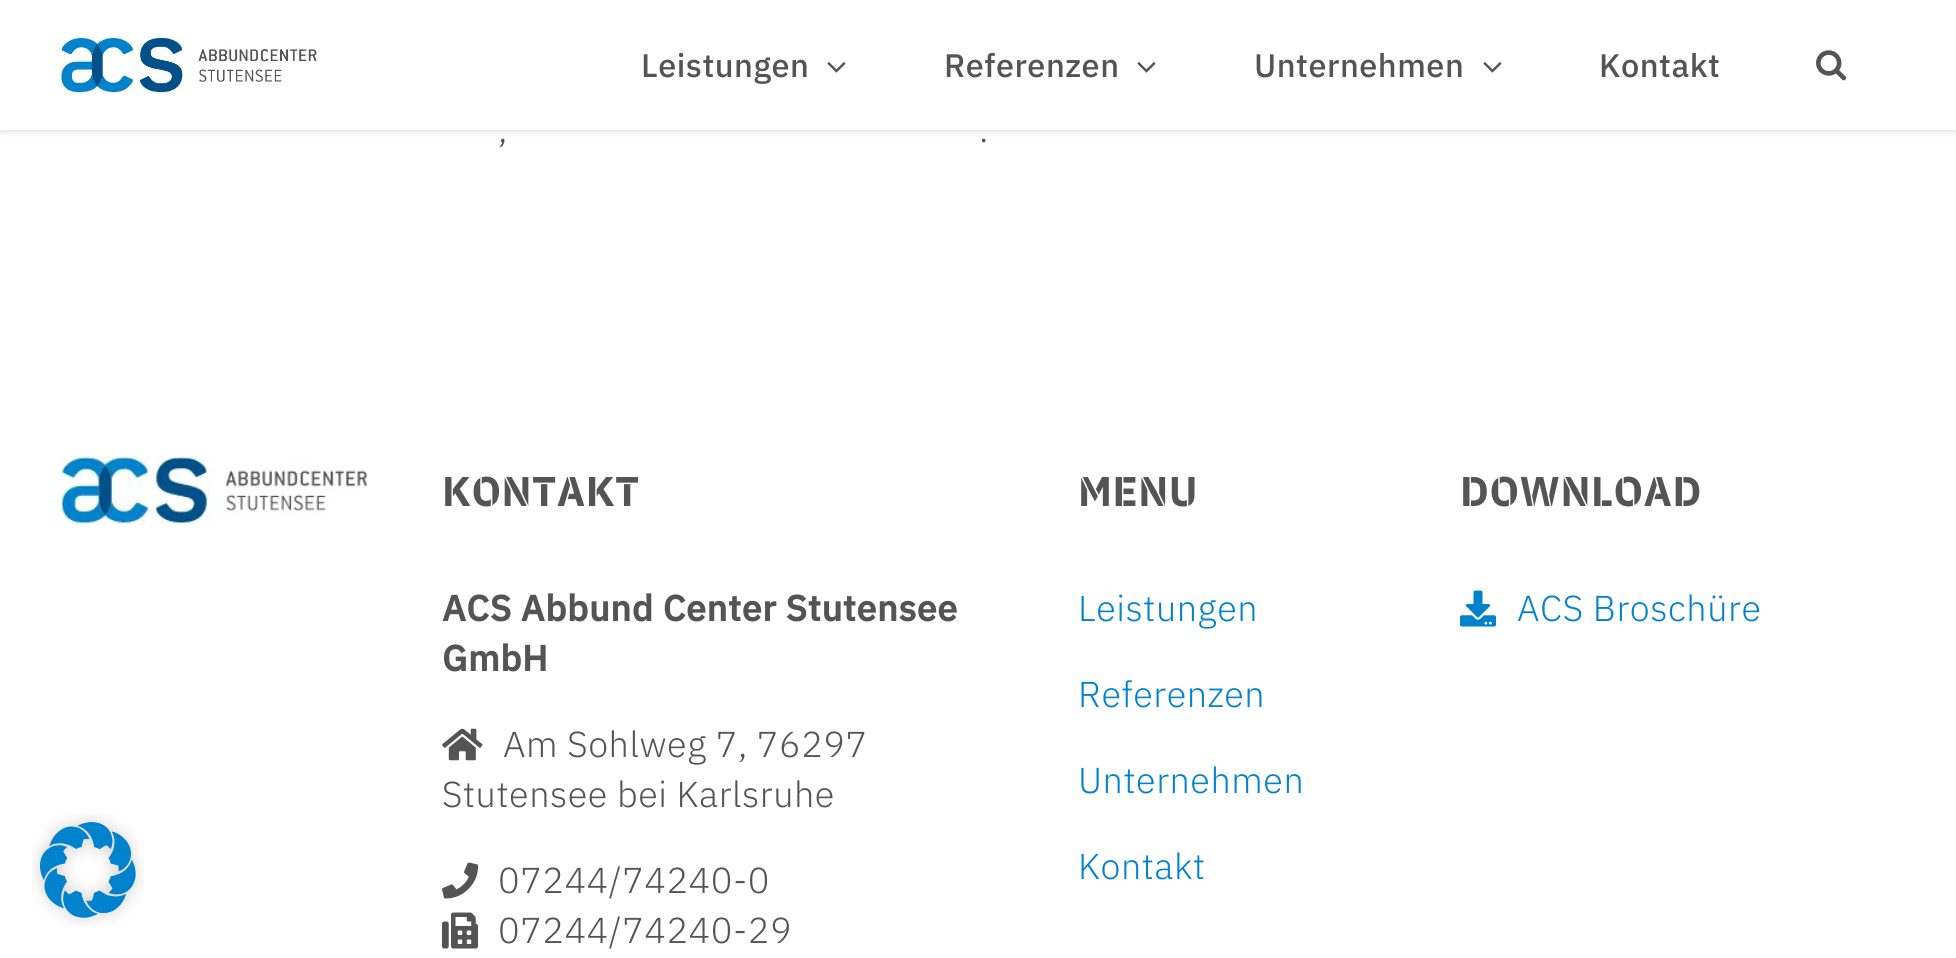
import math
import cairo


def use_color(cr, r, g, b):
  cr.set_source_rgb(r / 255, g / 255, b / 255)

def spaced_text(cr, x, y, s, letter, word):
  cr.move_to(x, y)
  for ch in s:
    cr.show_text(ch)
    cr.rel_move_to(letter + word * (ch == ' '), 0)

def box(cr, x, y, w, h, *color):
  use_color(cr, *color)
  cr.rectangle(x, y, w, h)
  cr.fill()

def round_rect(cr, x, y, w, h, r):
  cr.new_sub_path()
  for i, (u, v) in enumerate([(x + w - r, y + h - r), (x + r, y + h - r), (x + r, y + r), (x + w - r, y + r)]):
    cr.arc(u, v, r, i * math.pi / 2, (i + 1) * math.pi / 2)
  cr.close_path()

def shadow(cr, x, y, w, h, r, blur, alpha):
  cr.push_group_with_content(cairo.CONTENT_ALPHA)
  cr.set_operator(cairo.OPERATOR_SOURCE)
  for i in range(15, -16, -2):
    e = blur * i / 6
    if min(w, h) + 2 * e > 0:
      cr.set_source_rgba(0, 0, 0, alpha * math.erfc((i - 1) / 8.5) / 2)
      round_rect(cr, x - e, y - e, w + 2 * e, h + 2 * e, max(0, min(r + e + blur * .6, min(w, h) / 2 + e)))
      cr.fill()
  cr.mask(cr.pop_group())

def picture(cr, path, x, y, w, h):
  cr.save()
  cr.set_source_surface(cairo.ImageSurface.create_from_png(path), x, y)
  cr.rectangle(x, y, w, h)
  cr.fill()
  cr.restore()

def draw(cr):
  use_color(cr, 255, 255, 255)
  cr.paint()
  picture(cr, "img_01.png", 32, 814, 112, 112)
  use_color(cr, 0, 0, 0)
  shadow(cr, 0, 2, 1956, 130, 0, 3, 0.12)
  box(cr, 0, 0, 1956, 130, 255, 255, 255)
  picture(cr, "img_02.png", 60, 36, 258, 57)
  picture(cr, "img_03.png", 827, 62, 19, 11)
  picture(cr, "img_03.png", 1137, 62, 19, 11)
  picture(cr, "img_03.png", 1483, 62, 19, 11)
  picture(cr, "img_04.png", 1816, 50, 31, 31)
  picture(cr, "img_05.png", 60, 456, 308, 69)
  picture(cr, "img_06.png", 442, 728, 41, 33)
  picture(cr, "img_07.png", 442, 862, 37, 37)
  picture(cr, "img_08.png", 442, 912, 36, 37)
  picture(cr, "img_09.png", 1460, 590, 36, 37)
  cr.select_font_face("IBM Plex Sans Medium")
  cr.set_font_size(32.5)
  use_color(cr, 84, 84, 84)
  spaced_text(cr, 641, 77, "Leistungen", 0.5, 0)
  spaced_text(cr, 944, 77, "Referenzen", 0.5, 0)
  spaced_text(cr, 1254, 77, "Unternehmen", 0.5, 0)
  spaced_text(cr, 1599, 77, "Kontakt", 0.5, 0)
  cr.select_font_face("IBM Plex Sans Light")
  cr.set_font_size(36)
  spaced_text(cr, 498, 142, ",", 0.55, 0)
  spaced_text(cr, 979, 142, ".", 0.55, 0)
  cr.select_font_face("IBM Plex Sans", cairo.FONT_SLANT_NORMAL, cairo.FONT_WEIGHT_BOLD)
  cr.set_font_size(41.5)
  spaced_text(cr, 442, 506, "KONTAKT", 0.5, 0)
  cr.select_font_face("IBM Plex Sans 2", cairo.FONT_SLANT_NORMAL, cairo.FONT_WEIGHT_BOLD)
  cr.set_font_size(36)
  spaced_text(cr, 442, 621, "ACS Abbund Center Stutensee", 0.55, 0)
  spaced_text(cr, 442, 671, "GmbH", 0.55, 0)
  cr.select_font_face("IBM Plex Sans Light")
  spaced_text(cr, 503, 757, "Am Sohlweg 7, 76297", 0.55, 0)
  spaced_text(cr, 442, 807, "Stutensee bei Karlsruhe", 0.55, 0)
  spaced_text(cr, 498, 893, "07244/74240-0", 0.55, 0)
  spaced_text(cr, 498, 943, "07244/74240-29", 0.55, 0)
  cr.select_font_face("IBM Plex Sans", cairo.FONT_SLANT_NORMAL, cairo.FONT_WEIGHT_BOLD)
  cr.set_font_size(41.5)
  spaced_text(cr, 1078, 506, "MENU", 0.5, 0)
  cr.select_font_face("IBM Plex Sans Light")
  cr.set_font_size(36)
  use_color(cr, 1, 130, 205)
  spaced_text(cr, 1078, 621, "Leistungen", 0.55, 0)
  spaced_text(cr, 1078, 707, "Referenzen", 0.55, 0)
  spaced_text(cr, 1078, 793, "Unternehmen", 0.55, 0)
  spaced_text(cr, 1078, 879, "Kontakt", 0.55, 0)
  cr.select_font_face("IBM Plex Sans", cairo.FONT_SLANT_NORMAL, cairo.FONT_WEIGHT_BOLD)
  cr.set_font_size(41.5)
  use_color(cr, 84, 84, 84)
  spaced_text(cr, 1460, 506, "DOWNLOAD", 0.5, 0)
  cr.select_font_face("IBM Plex Sans Light")
  cr.set_font_size(36)
  use_color(cr, 1, 130, 205)
  spaced_text(cr, 1517, 621, "ACS Broschüre", 0.55, 0)


surface = cairo.ImageSurface(cairo.FORMAT_RGB24, 1956, 958)
cr = cairo.Context(surface)
options = cairo.FontOptions()
options.set_hint_metrics(cairo.HINT_METRICS_OFF)
options.set_hint_style(cairo.HINT_STYLE_NONE)
cr.set_font_options(options)
cr.set_miter_limit(4)
draw(cr)
surface.write_to_png("out.png")
